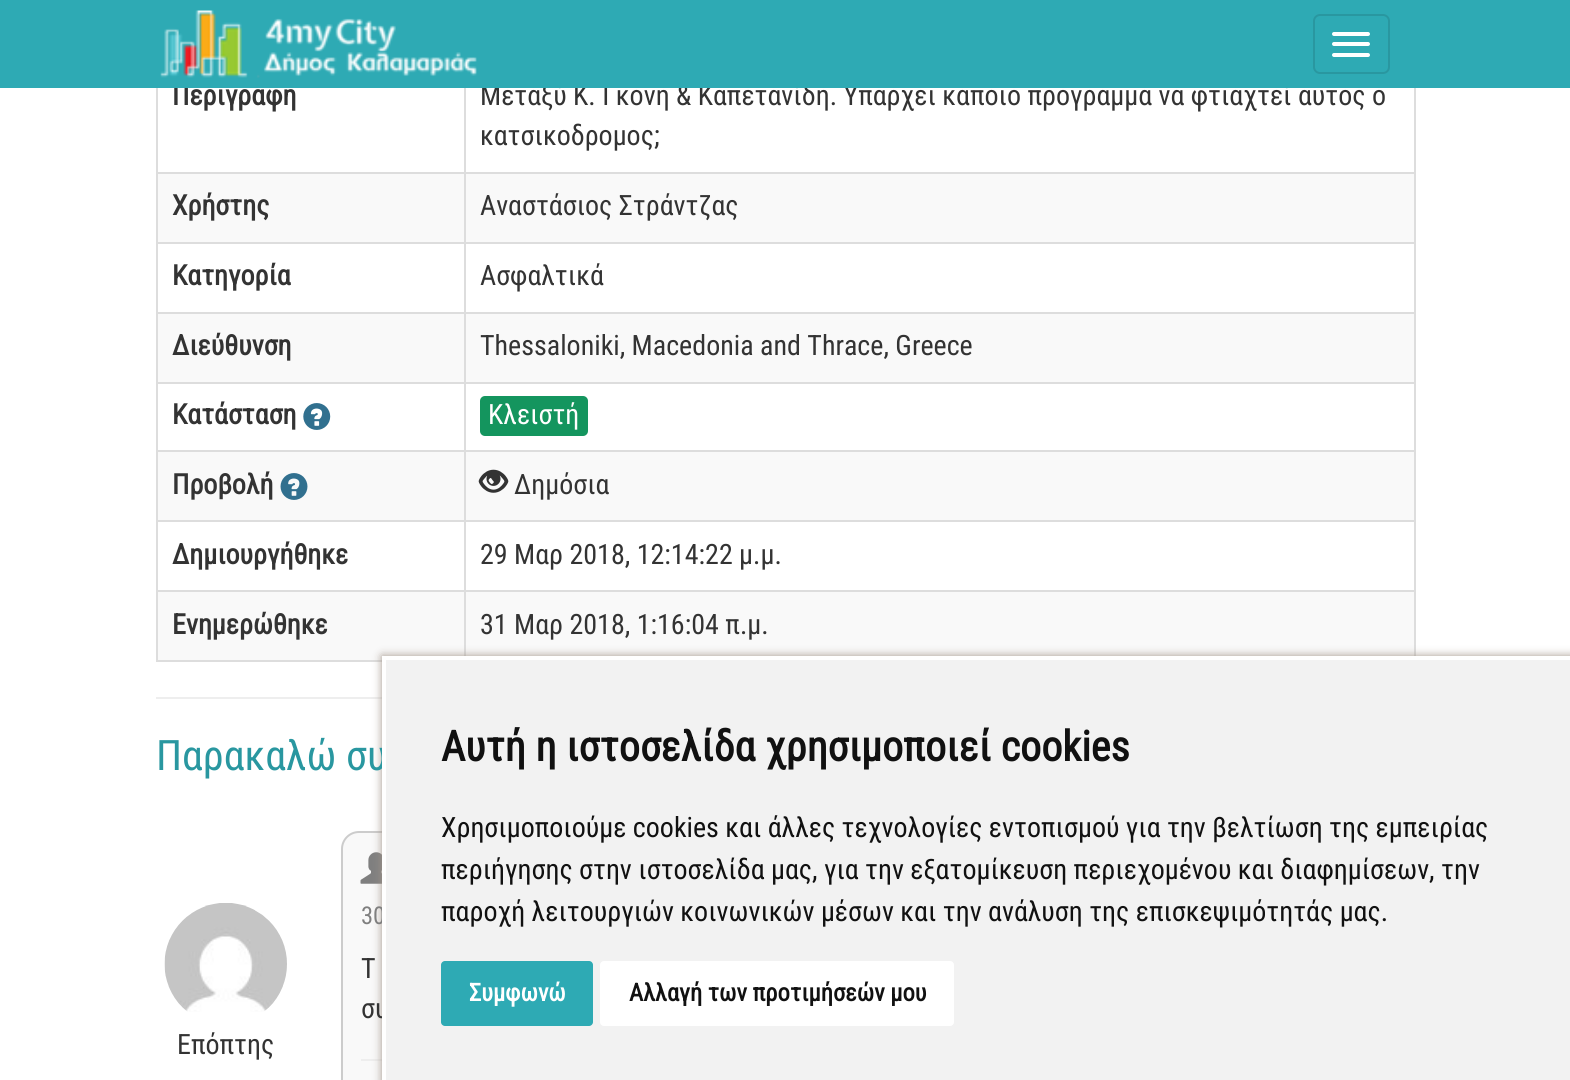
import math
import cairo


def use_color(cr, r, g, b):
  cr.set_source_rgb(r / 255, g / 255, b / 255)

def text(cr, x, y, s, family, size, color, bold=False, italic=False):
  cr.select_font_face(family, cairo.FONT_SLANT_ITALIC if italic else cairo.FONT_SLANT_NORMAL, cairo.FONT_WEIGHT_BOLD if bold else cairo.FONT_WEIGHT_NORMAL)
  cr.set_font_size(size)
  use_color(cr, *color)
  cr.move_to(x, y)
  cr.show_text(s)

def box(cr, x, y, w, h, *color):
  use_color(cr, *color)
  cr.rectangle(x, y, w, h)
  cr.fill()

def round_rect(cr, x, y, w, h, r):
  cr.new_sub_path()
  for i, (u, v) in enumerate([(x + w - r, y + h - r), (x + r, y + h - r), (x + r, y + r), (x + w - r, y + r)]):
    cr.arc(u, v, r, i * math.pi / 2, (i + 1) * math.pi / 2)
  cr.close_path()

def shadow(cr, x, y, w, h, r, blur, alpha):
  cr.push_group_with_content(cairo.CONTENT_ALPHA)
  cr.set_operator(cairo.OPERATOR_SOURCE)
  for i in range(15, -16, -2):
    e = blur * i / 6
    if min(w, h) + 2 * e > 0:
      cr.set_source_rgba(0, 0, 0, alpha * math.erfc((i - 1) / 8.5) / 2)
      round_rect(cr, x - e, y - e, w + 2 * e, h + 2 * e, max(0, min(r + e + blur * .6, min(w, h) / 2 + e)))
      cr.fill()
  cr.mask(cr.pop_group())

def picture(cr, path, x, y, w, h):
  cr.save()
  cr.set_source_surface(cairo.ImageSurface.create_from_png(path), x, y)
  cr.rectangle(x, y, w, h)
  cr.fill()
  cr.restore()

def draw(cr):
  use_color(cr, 255, 255, 255)
  cr.paint()
  box(cr, 1414, 88, 2, 574, 221, 221, 221)
  box(cr, 156, 660, 226, 2, 221, 221, 221)
  box(cr, 156, 88, 2, 574, 221, 221, 221)
  box(cr, 464, 172, 952, 2, 221, 221, 221)
  box(cr, 158, 174, 1256, 68, 249, 249, 249)
  box(cr, 464, 242, 952, 2, 221, 221, 221)
  box(cr, 464, 312, 952, 2, 221, 221, 221)
  box(cr, 158, 314, 1256, 68, 249, 249, 249)
  box(cr, 464, 382, 952, 2, 221, 221, 221)
  box(cr, 464, 450, 952, 2, 221, 221, 221)
  box(cr, 158, 452, 1256, 68, 249, 249, 249)
  box(cr, 464, 520, 952, 2, 221, 221, 221)
  box(cr, 464, 590, 952, 2, 221, 221, 221)
  box(cr, 158, 592, 1256, 68, 249, 249, 249)
  box(cr, 464, 590, 2, 72, 221, 221, 221)
  box(cr, 156, 590, 310, 2, 221, 221, 221)
  box(cr, 464, 520, 2, 72, 221, 221, 221)
  box(cr, 156, 520, 310, 2, 221, 221, 221)
  box(cr, 464, 450, 2, 72, 221, 221, 221)
  box(cr, 156, 450, 310, 2, 221, 221, 221)
  box(cr, 464, 382, 2, 70, 221, 221, 221)
  box(cr, 156, 382, 310, 2, 221, 221, 221)
  box(cr, 464, 312, 2, 71, 221, 221, 221)
  box(cr, 156, 312, 310, 2, 221, 221, 221)
  box(cr, 464, 242, 2, 71, 221, 221, 221)
  box(cr, 156, 242, 310, 2, 221, 221, 221)
  box(cr, 464, 172, 2, 71, 221, 221, 221)
  box(cr, 156, 172, 310, 2, 221, 221, 221)
  box(cr, 464, 88, 2, 85, 221, 221, 221)
  picture(cr, "img_02.png", 303, 403, 28, 27)
  use_color(cr, 20, 149, 94)
  round_rect(cr, 480, 396, 108, 40, 5)
  cr.fill()
  picture(cr, "img_03.png", 280, 473, 28, 27)
  picture(cr, "img_04.png", 478, 469, 31, 24)
  box(cr, 156, 697, 226, 2, 238, 238, 238)
  use_color(cr, 249, 249, 249)
  round_rect(cr, 342, 832, 1073, 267, 17)
  cr.fill_preserve()
  use_color(cr, 204, 204, 204)
  cr.stroke()
  picture(cr, "img_05.png", 360, 852, 22, 32)
  box(cr, 361, 1059, 21, 2, 238, 238, 238)
  picture(cr, "img_06.png", 164, 903, 123, 109)
  use_color(cr, 162, 149, 138)
  shadow(cr, 382, 656, 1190, 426, 0, 4.5, 1)
  box(cr, 382, 656, 1188, 4, 255, 255, 255)
  text(cr, 172, 105, "Περιγραφή", "Roboto Condensed", 28, (51, 51, 51), bold=True)
  text(cr, 480, 105, "Μεταξύ Κ. Γκόνη & Καπετανίδη. Υπάρχει κάποιο πρόγραμμα να φτιαχτεί αυτός ο", "Roboto Condensed", 28, (51, 51, 51))
  box(cr, 0, 0, 1570, 88, 46, 170, 180)
  round_rect(cr, 1314, 15, 75, 58, 6)
  use_color(cr, 41, 151, 160)
  cr.stroke()
  use_color(cr, 255, 255, 255)
  round_rect(cr, 1332, 53, 38, 4, 2)
  cr.fill()
  round_rect(cr, 1332, 42, 38, 4, 2)
  cr.fill()
  round_rect(cr, 1332, 32, 38, 4, 2)
  cr.fill()
  picture(cr, "img_01.png", 160, 10, 317, 68)
  text(cr, 480, 145, "κατσικοδρομος;", "Roboto Condensed", 28, (51, 51, 51))
  text(cr, 172, 215, "Χρήστης", "Roboto Condensed", 28, (51, 51, 51), bold=True)
  text(cr, 480, 215, "Αναστάσιος Στράντζας", "Roboto Condensed", 28, (51, 51, 51))
  text(cr, 172, 285, "Κατηγορία", "Roboto Condensed", 28, (51, 51, 51), bold=True)
  text(cr, 480, 285, "Ασφαλτικά", "Roboto Condensed", 28, (51, 51, 51))
  text(cr, 172, 355, "Διεύθυνση", "Roboto Condensed", 28, (51, 51, 51), bold=True)
  text(cr, 480, 355, "Thessaloniki, Macedonia and Thrace, Greece", "Roboto Condensed", 28, (51, 51, 51))
  text(cr, 172, 424, "Κατάσταση", "Roboto Condensed", 28, (51, 51, 51), bold=True)
  text(cr, 488, 424, "Κλειστή", "Roboto Condensed", 28, (255, 255, 255))
  text(cr, 172, 494, "Προβολή", "Roboto Condensed", 28, (51, 51, 51), bold=True)
  text(cr, 514, 494, "Δημόσια", "Roboto Condensed", 28, (51, 51, 51))
  text(cr, 172, 564, "Δημιουργήθηκε", "Roboto Condensed", 28, (51, 51, 51), bold=True)
  text(cr, 480, 564, "29 Μαρ 2018, 12:14:22 μ.μ.", "Roboto Condensed", 28, (51, 51, 51))
  text(cr, 172, 634, "Ενημερώθηκε", "Roboto Condensed", 28, (51, 51, 51), bold=True)
  text(cr, 480, 634, "31 Μαρ 2018, 1:16:04 π.μ.", "Roboto Condensed", 28, (51, 51, 51))
  text(cr, 156, 770, "Παρακαλώ συ", "Roboto Condensed", 42, (41, 151, 160))
  text(cr, 361, 924, "30", "Roboto Condensed", 24.5, (127, 127, 127))
  text(cr, 361, 978, "Τ", "Roboto Condensed", 28, (51, 51, 51))
  text(cr, 361, 1018, "συ", "Roboto Condensed", 28, (51, 51, 51))
  text(cr, 177, 1054, "Επόπτης", "Roboto Condensed", 28, (51, 51, 51))
  box(cr, 386, 660, 1184, 420, 242, 242, 242)
  box(cr, 382, 656, 4, 424, 255, 255, 255)
  text(cr, 441, 761, "Αυτή η ιστοσελίδα χρησιμοποιεί cookies", "Roboto Condensed", 42, (17, 17, 17), bold=True)
  text(cr, 441, 837, "Χρησιμοποιούμε cookies και άλλες τεχνολογίες εντοπισμού για την βελτίωση της εμπειρίας", "Roboto Condensed", 28, (17, 17, 17))
  text(cr, 441, 879, "περιήγησης στην ιστοσελίδα μας, για την εξατομίκευση περιεχομένου και διαφημίσεων, την", "Roboto Condensed", 28, (17, 17, 17))
  text(cr, 441, 921, "παροχή λειτουργιών κοινωνικών μέσων και την ανάλυση της επισκεψιμότητάς μας.", "Roboto Condensed", 28, (17, 17, 17))
  use_color(cr, 46, 170, 180)
  round_rect(cr, 441, 961, 152, 65, 4)
  cr.fill()
  text(cr, 469, 1001, "Συμφωνώ", "Roboto Condensed", 24.5, (255, 255, 255), bold=True)
  round_rect(cr, 600, 961, 354, 65, 4)
  cr.fill()
  text(cr, 629, 1001, "Αλλαγή των προτιμήσεών μου", "Roboto Condensed", 24.5, (17, 17, 17), bold=True)


surface = cairo.ImageSurface(cairo.FORMAT_RGB24, 1570, 1080)
cr = cairo.Context(surface)
options = cairo.FontOptions()
options.set_hint_metrics(cairo.HINT_METRICS_OFF)
options.set_hint_style(cairo.HINT_STYLE_NONE)
cr.set_font_options(options)
cr.set_miter_limit(4)
draw(cr)
surface.write_to_png("out.png")
